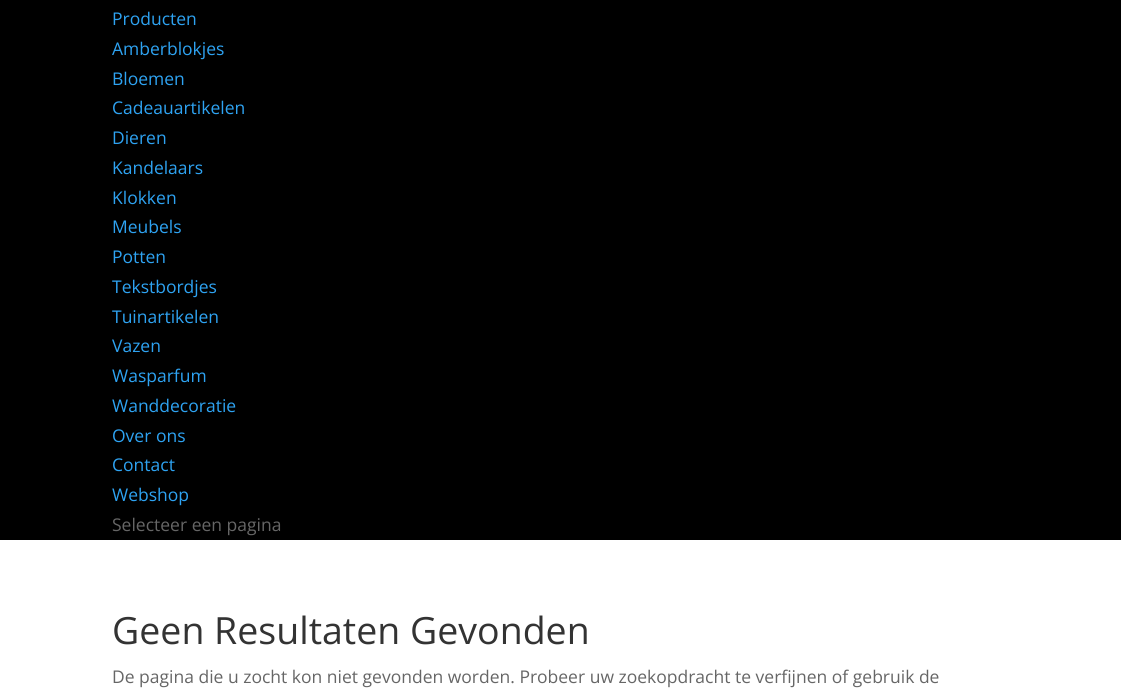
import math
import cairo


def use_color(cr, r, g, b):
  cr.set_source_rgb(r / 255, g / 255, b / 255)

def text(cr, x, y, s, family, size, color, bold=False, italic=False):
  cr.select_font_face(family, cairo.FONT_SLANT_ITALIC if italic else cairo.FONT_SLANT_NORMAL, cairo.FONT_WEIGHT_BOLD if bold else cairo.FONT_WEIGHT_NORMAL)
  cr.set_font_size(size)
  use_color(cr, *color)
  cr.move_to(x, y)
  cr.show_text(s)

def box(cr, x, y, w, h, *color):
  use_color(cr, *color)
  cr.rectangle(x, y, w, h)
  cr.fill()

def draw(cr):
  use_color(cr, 0, 0, 0)
  cr.paint()
  box(cr, 0, 540, 1121, 149, 255, 255, 255)
  text(cr, 112, 25, "Producten", "Open Sans", 17.5, (46, 163, 242))
  text(cr, 112, 55, "Amberblokjes", "Open Sans", 17.5, (46, 163, 242))
  text(cr, 112, 85, "Bloemen", "Open Sans", 17.5, (46, 163, 242))
  text(cr, 112, 114, "Cadeauartikelen", "Open Sans", 17.5, (46, 163, 242))
  text(cr, 112, 144, "Dieren", "Open Sans", 17.5, (46, 163, 242))
  text(cr, 112, 174, "Kandelaars", "Open Sans", 17.5, (46, 163, 242))
  text(cr, 112, 204, "Klokken", "Open Sans", 17.5, (46, 163, 242))
  text(cr, 112, 233, "Meubels", "Open Sans", 17.5, (46, 163, 242))
  text(cr, 112, 263, "Potten", "Open Sans", 17.5, (46, 163, 242))
  text(cr, 112, 293, "Tekstbordjes", "Open Sans", 17.5, (46, 163, 242))
  text(cr, 112, 323, "Tuinartikelen", "Open Sans", 17.5, (46, 163, 242))
  text(cr, 112, 352, "Vazen", "Open Sans", 17.5, (46, 163, 242))
  text(cr, 112, 382, "Wasparfum", "Open Sans", 17.5, (46, 163, 242))
  text(cr, 112, 412, "Wanddecoratie", "Open Sans", 17.5, (46, 163, 242))
  text(cr, 112, 442, "Over ons", "Open Sans", 17.5, (46, 163, 242))
  text(cr, 112, 471, "Contact", "Open Sans", 17.5, (46, 163, 242))
  text(cr, 112, 501, "Webshop", "Open Sans", 17.5, (46, 163, 242))
  text(cr, 112, 531, "Selecteer een pagina", "Open Sans", 17.5, (102, 102, 102))
  text(cr, 112, 644, "Geen Resultaten Gevonden", "Open Sans", 37.5, (51, 51, 51))
  text(cr, 112, 683, "De pagina die u zocht kon niet gevonden worden. Probeer uw zoekopdracht te verfijnen of gebruik de", "Open Sans", 17.5, (102, 102, 102))


surface = cairo.ImageSurface(cairo.FORMAT_RGB24, 1121, 689)
cr = cairo.Context(surface)
options = cairo.FontOptions()
options.set_hint_metrics(cairo.HINT_METRICS_OFF)
options.set_hint_style(cairo.HINT_STYLE_NONE)
cr.set_font_options(options)
cr.set_miter_limit(4)
draw(cr)
surface.write_to_png("out.png")
